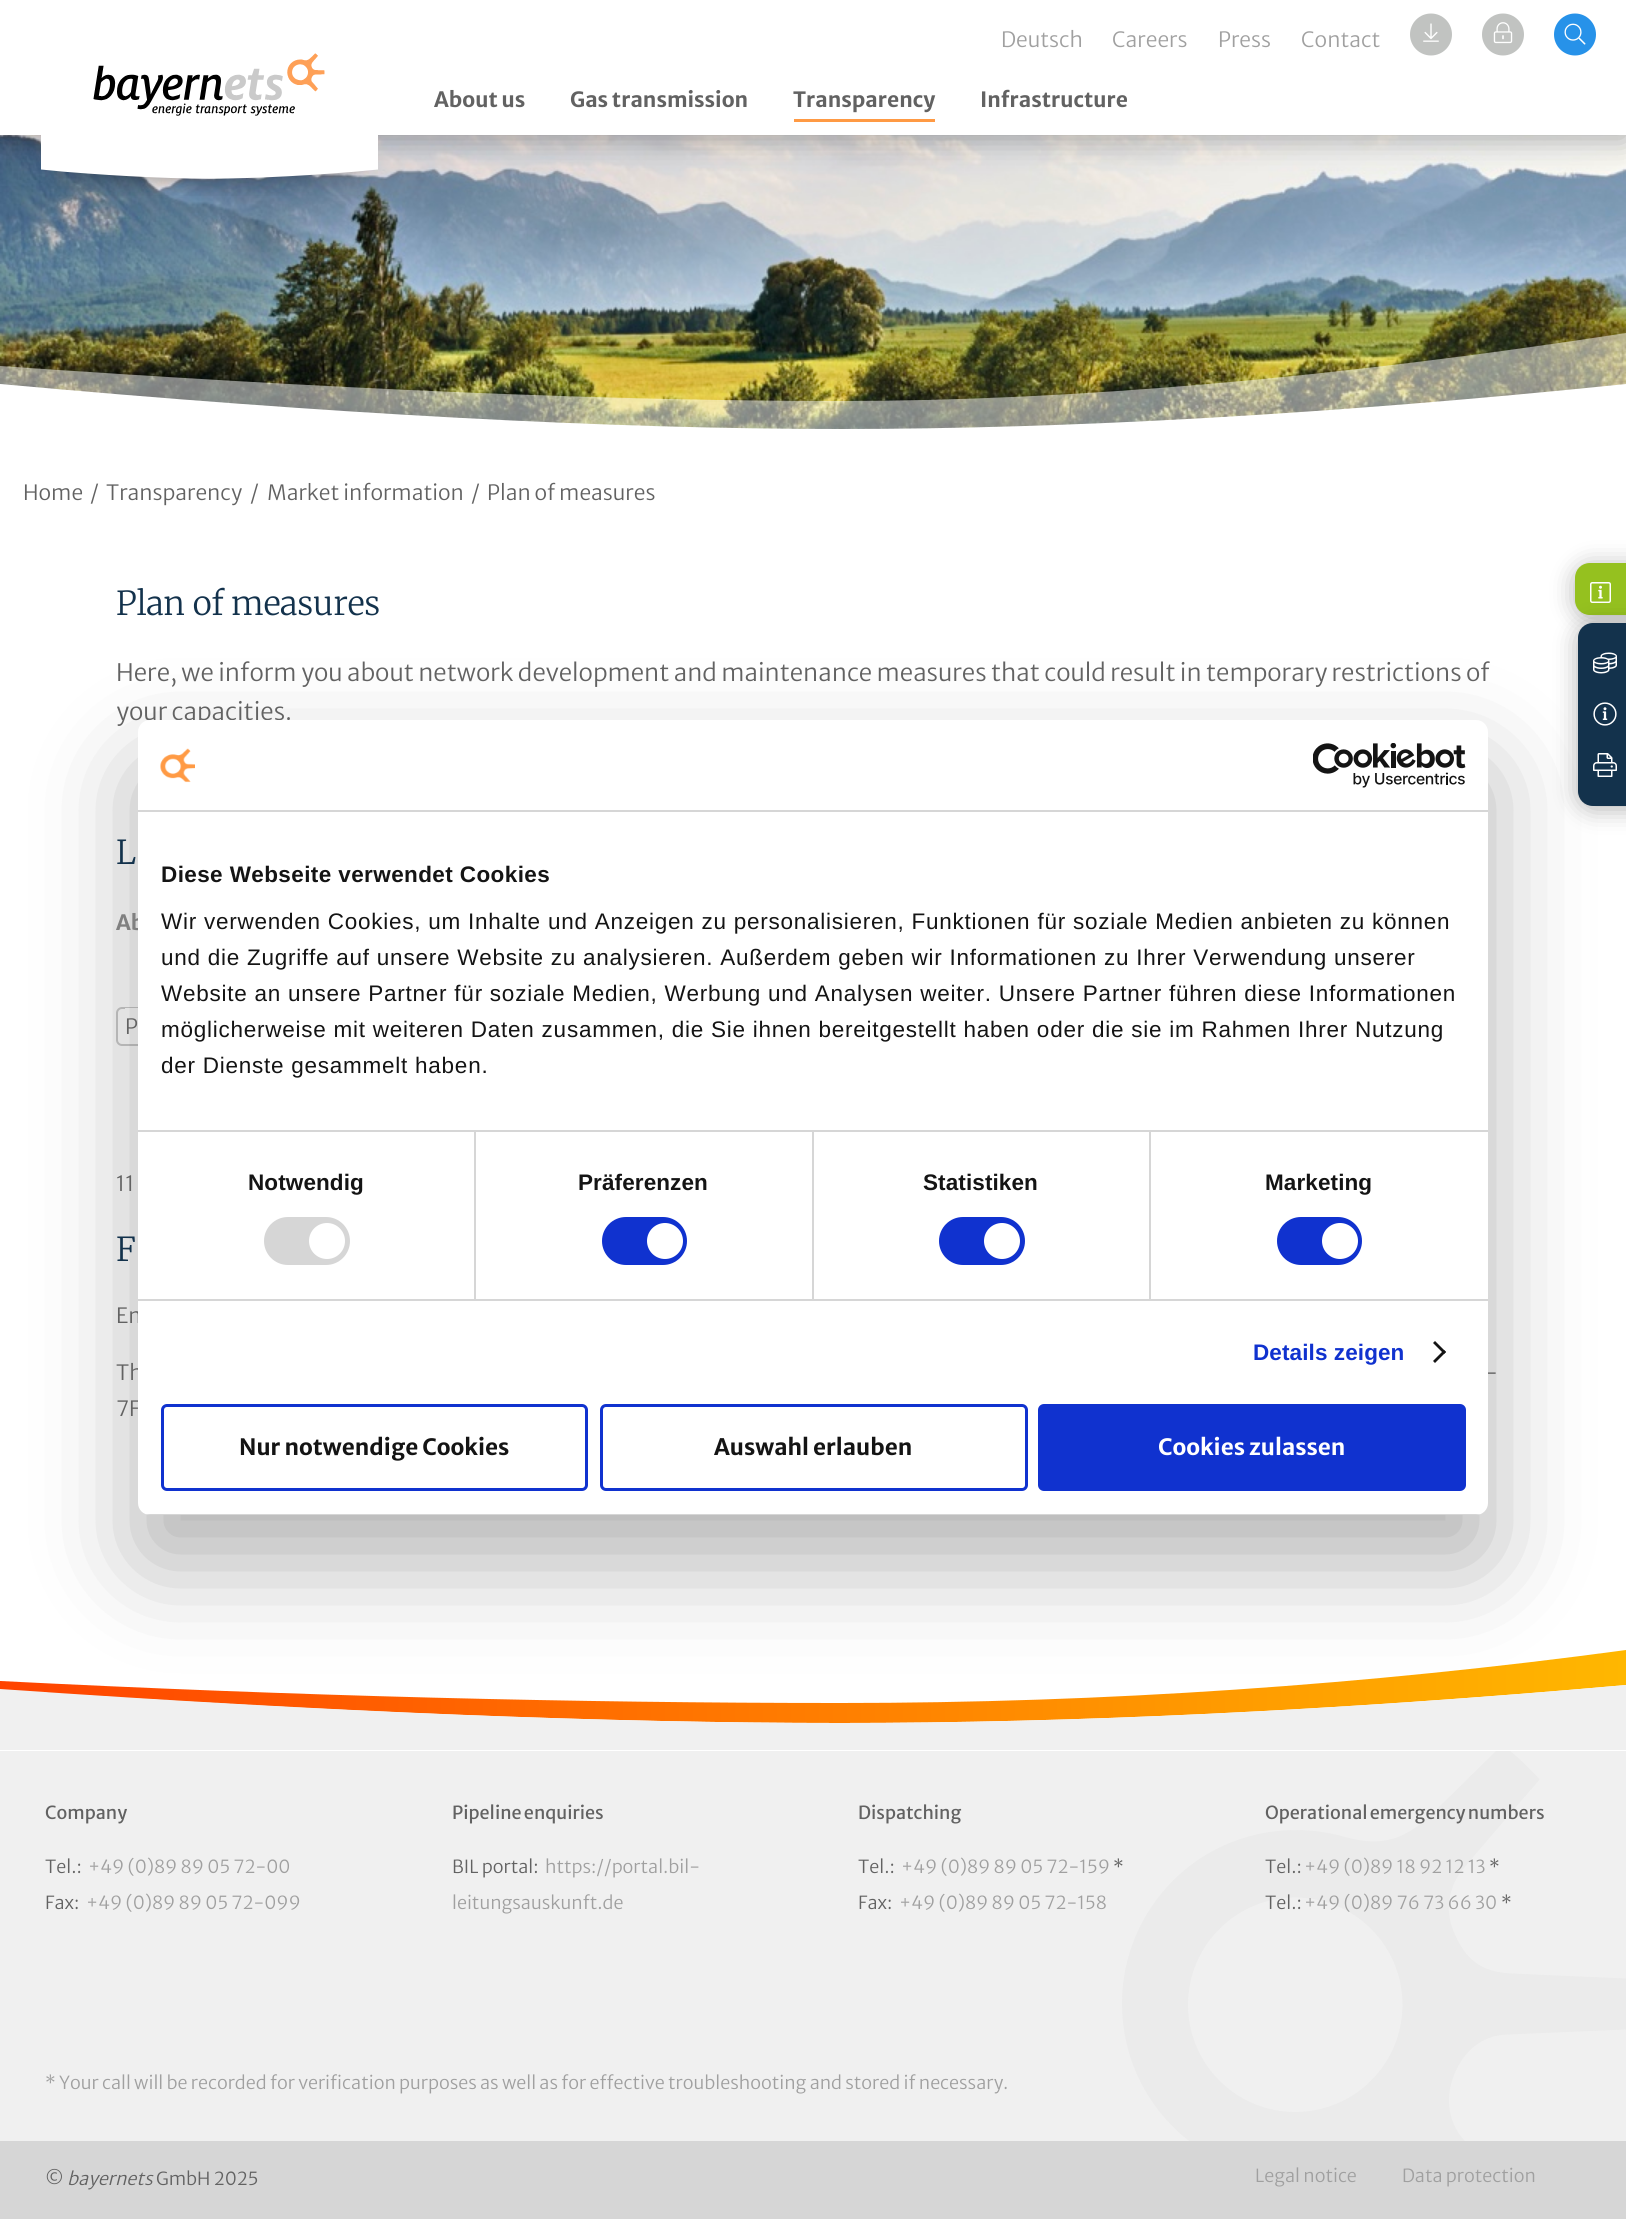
import math
import cairo


def use_color(cr, r, g, b):
  cr.set_source_rgb(r / 255, g / 255, b / 255)

def text(cr, x, y, s, family, size, color, bold=False, italic=False):
  cr.select_font_face(family, cairo.FONT_SLANT_ITALIC if italic else cairo.FONT_SLANT_NORMAL, cairo.FONT_WEIGHT_BOLD if bold else cairo.FONT_WEIGHT_NORMAL)
  cr.set_font_size(size)
  use_color(cr, *color)
  cr.move_to(x, y)
  cr.show_text(s)

def spaced_text(cr, x, y, s, letter, word):
  cr.move_to(x, y)
  for ch in s:
    cr.show_text(ch)
    cr.rel_move_to(letter + word * (ch == ' '), 0)

def box(cr, x, y, w, h, *color):
  use_color(cr, *color)
  cr.rectangle(x, y, w, h)
  cr.fill()

def round_rect(cr, x, y, w, h, r):
  cr.new_sub_path()
  for i, (u, v) in enumerate([(x + w - r, y + h - r), (x + r, y + h - r), (x + r, y + r), (x + w - r, y + r)]):
    cr.arc(u, v, r, i * math.pi / 2, (i + 1) * math.pi / 2)
  cr.close_path()

def shadow(cr, x, y, w, h, r, blur, alpha):
  cr.push_group_with_content(cairo.CONTENT_ALPHA)
  cr.set_operator(cairo.OPERATOR_SOURCE)
  for i in range(15, -16, -2):
    e = blur * i / 6
    if min(w, h) + 2 * e > 0:
      cr.set_source_rgba(0, 0, 0, alpha * math.erfc((i - 1) / 8.5) / 2)
      round_rect(cr, x - e, y - e, w + 2 * e, h + 2 * e, max(0, min(r + e + blur * .6, min(w, h) / 2 + e)))
      cr.fill()
  cr.mask(cr.pop_group())

def picture(cr, path, x, y, w, h):
  cr.save()
  cr.set_source_surface(cairo.ImageSurface.create_from_png(path), x, y)
  cr.rectangle(x, y, w, h)
  cr.fill()
  cr.restore()

def draw(cr):
  use_color(cr, 255, 255, 255)
  cr.paint()
  picture(cr, "img_05.png", 0, 135, 1626, 294)
  use_color(cr, 0, 0, 0)
  shadow(cr, 0, 3, 1626, 135, 0, 15, 0.3)
  box(cr, 0, 0, 1626, 135, 255, 255, 255)
  picture(cr, "img_01.png", 41, 53, 337, 143)
  picture(cr, "img_02.png", 1410, 13, 42, 43)
  picture(cr, "img_03.png", 1482, 13, 42, 43)
  picture(cr, "img_04.png", 1554, 13, 42, 43)
  box(cr, 794, 119, 141, 3, 255, 154, 68)
  cr.set_source_rgba(1, 1, 1, 0.5)
  cr.set_fill_rule(cairo.FILL_RULE_EVEN_ODD)
  cr.new_path()
  cr.move_to(0, 452)
  cr.line_to(1626, 452)
  cr.line_to(1626, 333)
  cr.curve_to(1333, 378, 1071, 401, 840, 401)
  cr.curve_to(610, 401, 330, 389, 0, 366)
  cr.close_path()
  cr.fill()
  use_color(cr, 255, 255, 255)
  cr.new_path()
  cr.move_to(0, 452)
  cr.line_to(1626, 452)
  cr.line_to(1626, 384)
  cr.curve_to(1333, 414, 1071, 429, 840, 429)
  cr.curve_to(610, 429, 330, 414, 0, 384)
  cr.close_path()
  cr.fill()
  round_rect(cr, 117, 1008, 328, 37, 5)
  use_color(cr, 203, 203, 203)
  cr.stroke()
  box(cr, 125, 1008, 13, 1, 255, 255, 255)
  use_color(cr, 0, 0, 0)
  shadow(cr, 1575, 566, 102, 52, 15, 12, 0.3)
  use_color(cr, 149, 193, 31)
  cr.new_path()
  cr.move_to(1590, 563)
  cr.line_to(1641, 563)
  cr.line_to(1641, 615)
  cr.line_to(1590, 615)
  cr.curve_to(1581.5, 615, 1575, 608.5, 1575, 600)
  cr.line_to(1575, 578)
  cr.curve_to(1575, 569.5, 1581.5, 563, 1590, 563)
  cr.close_path()
  cr.fill()
  picture(cr, "img_06.png", 1590, 582, 21, 21)
  use_color(cr, 0, 0, 0)
  shadow(cr, 1578, 626, 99, 183, 15, 12, 0.3)
  use_color(cr, 19, 50, 76)
  cr.new_path()
  cr.move_to(1593, 623)
  cr.line_to(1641, 623)
  cr.line_to(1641, 806)
  cr.line_to(1593, 806)
  cr.curve_to(1584.5, 806, 1578, 799.5, 1578, 791)
  cr.line_to(1578, 638)
  cr.curve_to(1578, 629.5, 1584.5, 623, 1593, 623)
  cr.close_path()
  cr.fill()
  picture(cr, "img_07.png", 1593, 652, 24, 22)
  picture(cr, "img_08.png", 1593, 702, 24, 24)
  picture(cr, "img_09.png", 1593, 753, 24, 24)
  gradient = cairo.LinearGradient(0, 1650, 1626, 1650)
  gradient.add_color_stop_rgba(0, 1, 0.263, 0, 1)
  gradient.add_color_stop_rgba(1, 1, 0.718, 0, 1)
  cr.set_source(gradient)
  cr.new_path()
  cr.move_to(1626, 1685)
  cr.curve_to(1333, 1711, 1071, 1723, 840, 1723)
  cr.curve_to(610, 1723, 330, 1712, 0, 1690)
  cr.line_to(0, 1681)
  cr.curve_to(296, 1696, 576, 1703, 840, 1703)
  cr.curve_to(1105, 1703, 1367, 1685, 1626, 1650)
  cr.close_path()
  cr.fill()
  use_color(cr, 240, 240, 240)
  cr.new_path()
  cr.move_to(0, 1689)
  cr.curve_to(330, 1712, 610, 1723, 840, 1723)
  cr.curve_to(1071, 1723, 1333, 1711, 1626, 1685)
  cr.line_to(1626, 1750)
  cr.line_to(0, 1750)
  cr.close_path()
  cr.fill()
  box(cr, 0, 1751, 1626, 390, 240, 240, 240)
  picture(cr, "img_10.png", 1122, 1751, 504, 390)
  box(cr, 0, 2141, 1626, 78, 214, 214, 214)
  use_color(cr, 0, 0, 0)
  shadow(cr, 138, 768, 1350, 795, 12, 51, 0.3)
  text(cr, 1001, 47, "Deutsch", "Merriweather Sans Light", 21, (160, 160, 160))
  text(cr, 1112, 47, "Careers", "Merriweather Sans Light", 21, (160, 160, 160))
  text(cr, 1218, 47, "Press", "Merriweather Sans Light", 21, (160, 160, 160))
  text(cr, 1301, 47, "Contact", "Merriweather Sans Light", 21, (160, 160, 160))
  text(cr, 434, 107, "About us", "Merriweather Sans", 21, (98, 98, 98), bold=True)
  text(cr, 570, 107, "Gas transmission", "Merriweather Sans", 21, (98, 98, 98), bold=True)
  text(cr, 793, 107, "Transparency", "Merriweather Sans", 21, (98, 98, 98), bold=True)
  text(cr, 980, 107, "Infrastructure", "Merriweather Sans", 21, (98, 98, 98), bold=True)
  text(cr, 23, 500, "Home", "Merriweather Sans Light", 21, (98, 98, 98))
  text(cr, 90, 500, "/", "Merriweather Sans Light", 21, (98, 98, 98))
  text(cr, 106, 500, "Transparency", "Merriweather Sans Light", 21, (98, 98, 98))
  text(cr, 250, 500, "/", "Merriweather Sans Light", 21, (98, 98, 98))
  text(cr, 267, 500, "Market information", "Merriweather Sans Light", 21, (98, 98, 98))
  text(cr, 471, 500, "/", "Merriweather Sans Light", 21, (98, 98, 98))
  text(cr, 487, 500, "Plan of measures", "Merriweather Sans Light", 21, (98, 98, 98))
  text(cr, 116, 615, "Plan of measures", "Merriweather Light", 33, (19, 50, 76))
  text(cr, 116, 681, "Here, we inform you about network development and maintenance measures that could result in temporary restrictions of", "Merriweather Sans Light", 24, (98, 98, 98))
  text(cr, 116, 720, "your capacities.", "Merriweather Sans Light", 24, (98, 98, 98))
  text(cr, 116, 864, "L", "Merriweather Light", 33, (19, 50, 76))
  text(cr, 116, 930, "Ab", "Merriweather Sans", 21, (128, 128, 128), bold=True)
  text(cr, 125, 1034, "P", "Merriweather Sans Light", 21, (98, 98, 98))
  text(cr, 116, 1191, "11", "Merriweather Sans Light", 21, (98, 98, 98))
  text(cr, 116, 1261, "F", "Merriweather Light", 33, (19, 50, 76))
  text(cr, 116, 1323, "Em", "Merriweather Sans Light", 21, (98, 98, 98))
  text(cr, 116, 1380, "Th", "Merriweather Sans Light", 21, (98, 98, 98))
  text(cr, 1485, 1380, "-", "Merriweather Sans Light", 21, (98, 98, 98))
  text(cr, 116, 1416, "7F", "Merriweather Sans Light", 21, (98, 98, 98))
  text(cr, 45, 1819, "Company", "Merriweather Sans", 18, (98, 98, 98))
  text(cr, 45, 1873, "Tel.:", "Merriweather Sans Light", 18, (98, 98, 98))
  text(cr, 88, 1873, "+49 (0)89 89 05 72-00", "Merriweather Sans Light", 18, (160, 160, 160))
  text(cr, 45, 1909, "Fax:", "Merriweather Sans Light", 18, (98, 98, 98))
  text(cr, 86, 1909, "+49 (0)89 89 05 72-099", "Merriweather Sans Light", 18, (160, 160, 160))
  cr.select_font_face("Merriweather Sans")
  use_color(cr, 98, 98, 98)
  spaced_text(cr, 452, 1819, "Pipeline enquiries", 0, -1)
  text(cr, 452, 1873, "BIL portal:", "Merriweather Sans Light", 18, (98, 98, 98))
  text(cr, 545, 1873, "https://portal.bil-", "Merriweather Sans Light", 18, (160, 160, 160))
  text(cr, 452, 1909, "leitungsauskunft.de", "Merriweather Sans Light", 18, (160, 160, 160))
  text(cr, 858, 1819, "Dispatching", "Merriweather Sans", 18, (98, 98, 98))
  text(cr, 858, 1873, "Tel.:", "Merriweather Sans Light", 18, (98, 98, 98))
  text(cr, 901, 1873, "+49 (0)89 89 05 72-159", "Merriweather Sans Light", 18, (160, 160, 160))
  text(cr, 1113, 1873, "*", "Merriweather Sans Light", 18, (98, 98, 98))
  text(cr, 858, 1909, "Fax:", "Merriweather Sans Light", 18, (98, 98, 98))
  text(cr, 899, 1909, "+49 (0)89 89 05 72-158", "Merriweather Sans Light", 18, (160, 160, 160))
  cr.select_font_face("Merriweather Sans")
  use_color(cr, 98, 98, 98)
  spaced_text(cr, 1265, 1819, "Operational emergency numbers", 0, -1)
  text(cr, 1265, 1873, "Tel.:", "Merriweather Sans Light", 18, (98, 98, 98))
  text(cr, 1304, 1873, "+49 (0)89 18 92 12 13", "Merriweather Sans Light", 18, (160, 160, 160))
  text(cr, 1489, 1873, "*", "Merriweather Sans Light", 18, (98, 98, 98))
  text(cr, 1265, 1909, "Tel.:", "Merriweather Sans Light", 18, (98, 98, 98))
  text(cr, 1304, 1909, "+49 (0)89 76 73 66 30", "Merriweather Sans Light", 18, (160, 160, 160))
  text(cr, 1501, 1909, "*", "Merriweather Sans Light", 18, (98, 98, 98))
  text(cr, 45, 2089, "* Your call will be recorded for verification purposes as well as for effective troubleshooting and stored if necessary.", "Merriweather Sans Light", 18, (160, 160, 160))
  text(cr, 45, 2185, "©", "Merriweather Sans Light", 18, (98, 98, 98))
  text(cr, 67, 2185, "bayernets", "Merriweather Sans Light", 18, (98, 98, 98), italic=True)
  text(cr, 156, 2185, "GmbH 2025", "Merriweather Sans Light", 18, (98, 98, 98))
  text(cr, 1255, 2182, "Legal notice", "Merriweather Sans Light", 18, (160, 160, 160))
  text(cr, 1402, 2182, "Data protection", "Merriweather Sans Light", 18, (160, 160, 160))
  use_color(cr, 255, 255, 255)
  round_rect(cr, 138, 720, 1350, 795, 12)
  cr.fill()
  box(cr, 138, 810, 1350, 2, 214, 214, 214)
  picture(cr, "img_11.png", 160, 748, 35, 35)
  picture(cr, "img_12.png", 1313, 743, 153, 45)
  cr.select_font_face("Liberation Sans", cairo.FONT_SLANT_NORMAL, cairo.FONT_WEIGHT_BOLD)
  cr.set_font_size(22.5)
  use_color(cr, 20, 20, 20)
  spaced_text(cr, 161, 882, "Diese Webseite verwendet Cookies", 0.4, 0)
  cr.select_font_face("Liberation Sans")
  spaced_text(cr, 161, 929, "Wir verwenden Cookies, um Inhalte und Anzeigen zu personalisieren, Funktionen für soziale Medien anbieten zu können", 0.75, 0)
  spaced_text(cr, 161, 965, "und die Zugriffe auf unsere Website zu analysieren. Außerdem geben wir Informationen zu Ihrer Verwendung unserer", 0.75, 0)
  spaced_text(cr, 161, 1001, "Website an unsere Partner für soziale Medien, Werbung und Analysen weiter. Unsere Partner führen diese Informationen", 0.75, 0)
  spaced_text(cr, 161, 1037, "möglicherweise mit weiteren Daten zusammen, die Sie ihnen bereitgestellt haben oder die sie im Rahmen Ihrer Nutzung", 0.75, 0)
  spaced_text(cr, 161, 1073, "der Dienste gesammelt haben.", 0.75, 0)
  box(cr, 138, 1299, 1350, 2, 214, 214, 214)
  box(cr, 474, 1131, 2, 168, 214, 214, 214)
  cr.select_font_face("Liberation Sans", cairo.FONT_SLANT_NORMAL, cairo.FONT_WEIGHT_BOLD)
  use_color(cr, 20, 20, 20)
  spaced_text(cr, 248, 1190, "Notwendig", 0.1, 0)
  use_color(cr, 214, 214, 214)
  round_rect(cr, 264, 1217, 86, 48, 24)
  cr.fill()
  use_color(cr, 255, 255, 255)
  cr.arc(327, 1241, 18, 0, 2 * math.pi)
  cr.fill()
  box(cr, 812, 1131, 2, 168, 214, 214, 214)
  use_color(cr, 20, 20, 20)
  spaced_text(cr, 578, 1190, "Präferenzen", 0.1, 0)
  use_color(cr, 16, 50, 207)
  round_rect(cr, 602, 1217, 85, 48, 24)
  cr.fill()
  use_color(cr, 255, 255, 255)
  cr.arc(665, 1241, 18, 0, 2 * math.pi)
  cr.fill()
  box(cr, 1149, 1131, 2, 168, 214, 214, 214)
  box(cr, 138, 1130, 1350, 2, 214, 214, 214)
  use_color(cr, 20, 20, 20)
  spaced_text(cr, 923, 1190, "Statistiken", 0.1, 0)
  use_color(cr, 16, 50, 207)
  round_rect(cr, 939, 1217, 86, 48, 24)
  cr.fill()
  use_color(cr, 255, 255, 255)
  cr.arc(1002, 1241, 18, 0, 2 * math.pi)
  cr.fill()
  use_color(cr, 20, 20, 20)
  spaced_text(cr, 1265, 1190, "Marketing", 0.1, 0)
  use_color(cr, 16, 50, 207)
  round_rect(cr, 1277, 1217, 85, 48, 24)
  cr.fill()
  use_color(cr, 255, 255, 255)
  cr.arc(1340, 1241, 18, 0, 2 * math.pi)
  cr.fill()
  use_color(cr, 16, 50, 207)
  spaced_text(cr, 1253, 1360, "Details zeigen", 0.1, 0)
  use_color(cr, 20, 20, 20)
  cr.set_fill_rule(cairo.FILL_RULE_WINDING)
  cr.new_path()
  cr.move_to(1435, 1341)
  cr.line_to(1446, 1352)
  cr.line_to(1444, 1354)
  cr.line_to(1433, 1343)
  cr.close_path()
  cr.fill()
  cr.new_path()
  cr.move_to(1444, 1350)
  cr.line_to(1446, 1352)
  cr.line_to(1435, 1363)
  cr.line_to(1433, 1361)
  cr.close_path()
  cr.fill()
  cr.save()
  round_rect(cr, 138, 720, 1350, 795, 12)
  cr.clip()
  box(cr, 138, 1514, 1350, 1, 214, 214, 214)
  cr.restore()
  round_rect(cr, 162.5, 1405.5, 424, 84, 4.5)
  use_color(cr, 16, 50, 207)
  cr.set_line_width(3)
  cr.stroke()
  text(cr, 239, 1455, "Nur notwendige Cookies", "Merriweather Sans", 22.5, (20, 20, 20), bold=True)
  round_rect(cr, 601.5, 1405.5, 425, 84, 4.5)
  use_color(cr, 16, 50, 207)
  cr.stroke()
  text(cr, 714, 1455, "Auswahl erlauben", "Merriweather Sans", 22.5, (20, 20, 20), bold=True)
  use_color(cr, 16, 50, 207)
  round_rect(cr, 1039.5, 1405.5, 425, 84, 4.5)
  cr.fill_preserve()
  cr.stroke()
  text(cr, 1158, 1455, "Cookies zulassen", "Merriweather Sans", 22.5, (255, 255, 255), bold=True)


surface = cairo.ImageSurface(cairo.FORMAT_RGB24, 1626, 2234)
cr = cairo.Context(surface)
options = cairo.FontOptions()
options.set_hint_metrics(cairo.HINT_METRICS_OFF)
options.set_hint_style(cairo.HINT_STYLE_NONE)
cr.set_font_options(options)
cr.set_miter_limit(4)
draw(cr)
surface.write_to_png("out.png")
